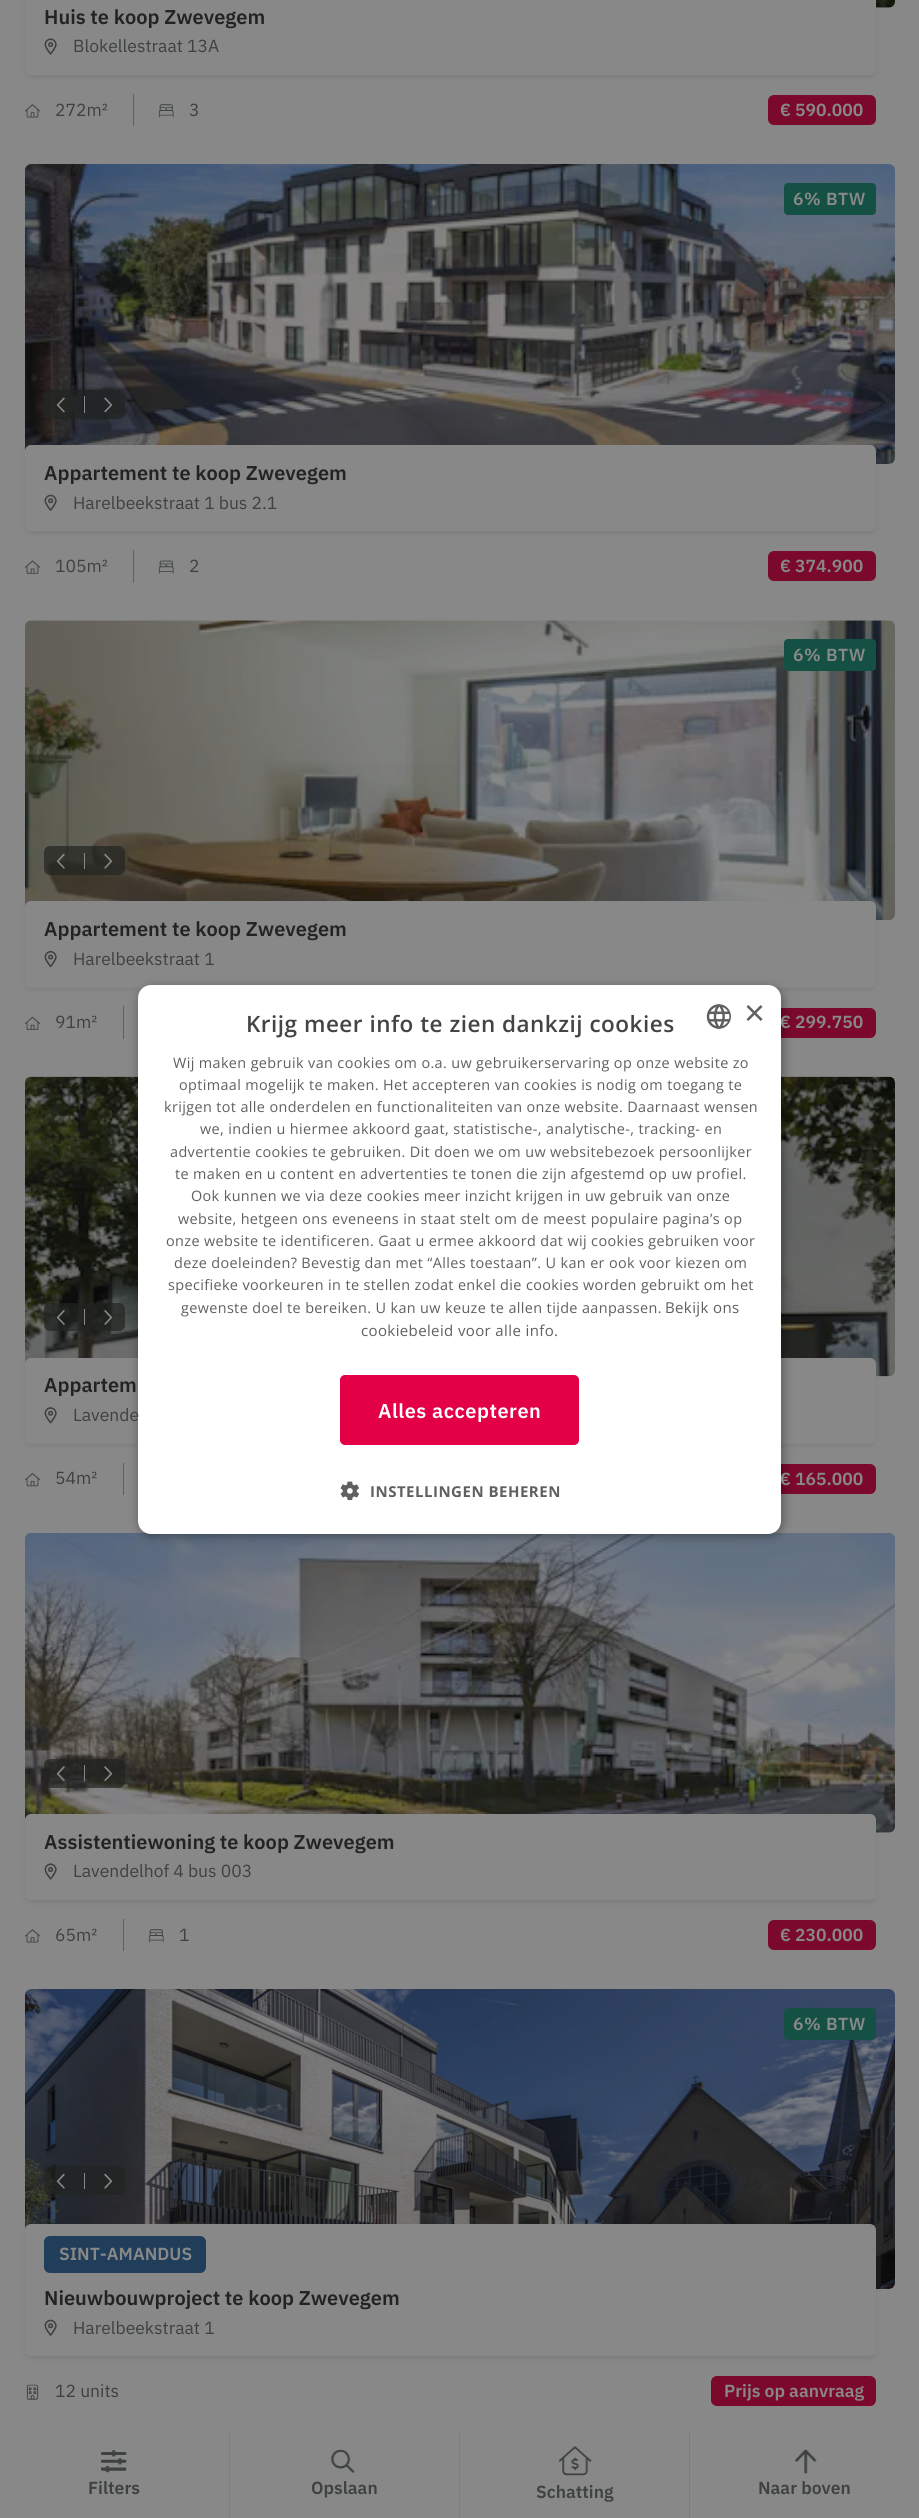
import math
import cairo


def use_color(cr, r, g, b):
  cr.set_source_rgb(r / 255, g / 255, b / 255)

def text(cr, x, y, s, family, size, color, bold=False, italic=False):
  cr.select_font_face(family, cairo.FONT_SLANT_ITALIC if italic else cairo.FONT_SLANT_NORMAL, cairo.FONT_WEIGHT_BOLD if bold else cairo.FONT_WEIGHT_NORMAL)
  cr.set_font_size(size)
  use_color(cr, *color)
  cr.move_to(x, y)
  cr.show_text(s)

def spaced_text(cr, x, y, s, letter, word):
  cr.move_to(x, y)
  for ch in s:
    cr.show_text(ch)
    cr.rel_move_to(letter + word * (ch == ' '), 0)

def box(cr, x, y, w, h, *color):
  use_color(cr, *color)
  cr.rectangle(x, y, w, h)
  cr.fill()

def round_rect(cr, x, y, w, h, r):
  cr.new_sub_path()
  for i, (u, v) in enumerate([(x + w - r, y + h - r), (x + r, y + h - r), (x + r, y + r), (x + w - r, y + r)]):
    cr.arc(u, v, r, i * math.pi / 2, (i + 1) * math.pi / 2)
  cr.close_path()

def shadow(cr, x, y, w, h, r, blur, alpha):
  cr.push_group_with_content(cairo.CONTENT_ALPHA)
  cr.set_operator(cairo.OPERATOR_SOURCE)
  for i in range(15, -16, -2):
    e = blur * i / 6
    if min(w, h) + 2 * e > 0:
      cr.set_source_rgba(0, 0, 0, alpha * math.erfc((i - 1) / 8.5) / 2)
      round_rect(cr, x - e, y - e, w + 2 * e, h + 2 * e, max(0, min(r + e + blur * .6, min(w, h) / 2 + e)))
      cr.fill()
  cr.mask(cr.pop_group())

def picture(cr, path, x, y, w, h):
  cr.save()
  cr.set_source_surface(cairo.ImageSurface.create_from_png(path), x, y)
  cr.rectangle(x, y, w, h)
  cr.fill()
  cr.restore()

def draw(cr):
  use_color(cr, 136, 136, 136)
  cr.paint()
  picture(cr, "img_01.png", 876, 0, 19, 8)
  use_color(cr, 26, 34, 26)
  shadow(cr, 25, -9, 851, 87, 6, 2.5, 0.1)
  use_color(cr, 136, 136, 136)
  round_rect(cr, 25, -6, 851, 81, 6)
  cr.fill()
  picture(cr, "img_02.png", 44, 38, 13, 17)
  box(cr, 133, 94, 1, 32, 94, 97, 98)
  picture(cr, "img_03.png", 25, 104, 15, 14)
  picture(cr, "img_04.png", 158, 104, 16, 14)
  use_color(cr, 123, 9, 44)
  round_rect(cr, 768, 95, 108, 30, 6)
  cr.fill()
  picture(cr, "img_05.png", 25, 164, 870, 300)
  cr.set_source_rgba(0.133, 0.141, 0.133, 0.7)
  round_rect(cr, 44, 390, 81, 29, 6)
  cr.fill()
  box(cr, 84, 396, 1, 17, 136, 136, 136)
  picture(cr, "img_06.png", 56, 397, 9, 16)
  picture(cr, "img_07.png", 104, 397, 9, 16)
  use_color(cr, 20, 81, 68)
  round_rect(cr, 785.5, 184.5, 89, 29, 2.5)
  cr.fill_preserve()
  cr.set_line_width(3)
  cr.stroke()
  use_color(cr, 26, 34, 26)
  shadow(cr, 25, 448, 851, 86, 6, 2.5, 0.1)
  use_color(cr, 136, 136, 136)
  round_rect(cr, 25, 445, 851, 86, 6)
  cr.fill()
  picture(cr, "img_08.png", 44, 494, 13, 17)
  box(cr, 133, 550, 1, 33, 94, 97, 98)
  picture(cr, "img_09.png", 25, 560, 15, 14)
  picture(cr, "img_10.png", 158, 560, 16, 14)
  use_color(cr, 123, 9, 44)
  round_rect(cr, 768, 551, 108, 30, 6)
  cr.fill()
  picture(cr, "img_11.png", 25, 620, 870, 300)
  cr.set_source_rgba(0.133, 0.141, 0.133, 0.7)
  round_rect(cr, 44, 846, 81, 29, 6)
  cr.fill()
  box(cr, 84, 853, 1, 16, 136, 136, 136)
  picture(cr, "img_12.png", 56, 853, 9, 16)
  picture(cr, "img_13.png", 104, 853, 9, 16)
  use_color(cr, 20, 81, 68)
  round_rect(cr, 785.5, 640.5, 89, 29, 2.5)
  cr.fill_preserve()
  cr.stroke()
  use_color(cr, 26, 34, 26)
  shadow(cr, 25, 904, 851, 86, 6, 2.5, 0.1)
  use_color(cr, 136, 136, 136)
  round_rect(cr, 25, 901, 851, 87, 6)
  cr.fill()
  picture(cr, "img_14.png", 44, 951, 13, 17)
  box(cr, 123, 1006, 1, 33, 94, 97, 98)
  picture(cr, "img_15.png", 25, 1016, 15, 14)
  use_color(cr, 123, 9, 44)
  round_rect(cr, 768, 1008, 108, 30, 6)
  cr.fill()
  picture(cr, "img_16.png", 25, 1076, 870, 301)
  cr.set_source_rgba(0.133, 0.141, 0.133, 0.7)
  round_rect(cr, 44, 1303, 81, 28, 6)
  cr.fill()
  box(cr, 84, 1309, 1, 16, 136, 136, 136)
  picture(cr, "img_17.png", 56, 1310, 9, 15)
  picture(cr, "img_18.png", 104, 1310, 9, 15)
  use_color(cr, 26, 34, 26)
  shadow(cr, 25, 1360, 851, 86, 6, 2.5, 0.1)
  use_color(cr, 136, 136, 136)
  round_rect(cr, 25, 1358, 851, 86, 6)
  cr.fill()
  picture(cr, "img_19.png", 44, 1407, 13, 17)
  box(cr, 123, 1463, 1, 32, 94, 97, 98)
  picture(cr, "img_20.png", 25, 1473, 15, 14)
  use_color(cr, 123, 9, 44)
  round_rect(cr, 768, 1464, 108, 30, 6)
  cr.fill()
  picture(cr, "img_21.png", 25, 1533, 870, 300)
  cr.set_source_rgba(0.133, 0.141, 0.133, 0.7)
  round_rect(cr, 44, 1759, 81, 29, 6)
  cr.fill()
  box(cr, 84, 1765, 1, 16, 136, 136, 136)
  picture(cr, "img_22.png", 56, 1766, 9, 16)
  picture(cr, "img_23.png", 104, 1766, 9, 16)
  use_color(cr, 26, 34, 26)
  shadow(cr, 25, 1816, 851, 87, 6, 2.5, 0.1)
  use_color(cr, 136, 136, 136)
  round_rect(cr, 25, 1814, 851, 86, 6)
  cr.fill()
  picture(cr, "img_02.png", 44, 1863, 13, 17)
  box(cr, 123, 1919, 1, 32, 94, 97, 98)
  picture(cr, "img_03.png", 25, 1929, 15, 14)
  picture(cr, "img_04.png", 148, 1929, 16, 14)
  use_color(cr, 123, 9, 44)
  round_rect(cr, 768, 1920, 108, 30, 6)
  cr.fill()
  picture(cr, "img_24.png", 25, 1989, 870, 300)
  cr.set_source_rgba(0.133, 0.141, 0.133, 0.7)
  round_rect(cr, 44, 2166, 81, 29, 6)
  cr.fill()
  box(cr, 84, 2173, 1, 16, 136, 136, 136)
  picture(cr, "img_25.png", 56, 2173, 9, 16)
  picture(cr, "img_26.png", 104, 2173, 9, 16)
  use_color(cr, 20, 81, 68)
  round_rect(cr, 785.5, 2009.5, 89, 29, 2.5)
  cr.fill_preserve()
  cr.stroke()
  use_color(cr, 26, 34, 26)
  shadow(cr, 25, 2226, 851, 133, 6, 2.5, 0.1)
  use_color(cr, 136, 136, 136)
  round_rect(cr, 25, 2224, 851, 132, 6)
  cr.fill()
  use_color(cr, 32, 62, 90)
  round_rect(cr, 44, 2236, 162, 37, 6)
  cr.fill()
  picture(cr, "img_08.png", 44, 2319, 13, 17)
  picture(cr, "img_27.png", 26, 2384, 13, 16)
  use_color(cr, 123, 9, 44)
  round_rect(cr, 711, 2376, 165, 30, 6)
  cr.fill()
  box(cr, 229, 2430, 1, 88, 126, 126, 126)
  picture(cr, "img_28.png", 101, 2450, 26, 23)
  box(cr, 459, 2430, 1, 88, 126, 126, 126)
  picture(cr, "img_29.png", 331, 2449, 24, 24)
  box(cr, 689, 2430, 1, 88, 126, 126, 126)
  picture(cr, "img_30.png", 558, 2446, 34, 30)
  picture(cr, "img_31.png", 795, 2449, 22, 25)
  use_color(cr, 0, 0, 0)
  shadow(cr, 139, 988, 644, 548, 13, 5, 0.35)
  use_color(cr, 255, 255, 255)
  round_rect(cr, 138, 985, 643, 549, 13)
  cr.fill()
  picture(cr, "img_32.png", 706, 1004, 25, 25)
  use_color(cr, 228, 0, 70)
  round_rect(cr, 339.5, 1374.5, 240, 71, 5.5)
  cr.fill_preserve()
  use_color(cr, 255, 255, 255)
  cr.set_line_width(1)
  cr.stroke()
  picture(cr, "img_33.png", 340, 1481, 19, 19)
  text(cr, 44, 24, "Huis te koop Zwevegem", "IBM Plex Sans SemiBold", 20, (34, 36, 34))
  text(cr, 73, 52, "Blokellestraat 13A", "IBM Plex Sans", 17.5, (61, 65, 66))
  text(cr, 55, 116, "272m²", "IBM Plex Sans", 17.5, (61, 65, 66))
  text(cr, 189, 116, "3", "IBM Plex Sans", 17.5, (61, 65, 66))
  text(cr, 780, 116, "€ 590.000", "IBM Plex Sans SemiBold", 17.5, (136, 136, 136))
  spaced_text(cr, 793, 205, "6% BTW", 0.5, 0)
  text(cr, 44, 480, "Appartement te koop Zwevegem", "IBM Plex Sans SemiBold", 20, (34, 36, 34))
  text(cr, 73, 509, "Harelbeekstraat 1 bus 2.1", "IBM Plex Sans", 17.5, (61, 65, 66))
  text(cr, 55, 572, "105m²", "IBM Plex Sans", 17.5, (61, 65, 66))
  text(cr, 189, 572, "2", "IBM Plex Sans", 17.5, (61, 65, 66))
  text(cr, 780, 572, "€ 374.900", "IBM Plex Sans SemiBold", 17.5, (136, 136, 136))
  spaced_text(cr, 793, 661, "6% BTW", 0.5, 0)
  text(cr, 44, 936, "Appartement te koop Zwevegem", "IBM Plex Sans SemiBold", 20, (34, 36, 34))
  text(cr, 73, 965, "Harelbeekstraat 1", "IBM Plex Sans", 17.5, (61, 65, 66))
  text(cr, 55, 1028, "91m²", "IBM Plex Sans", 17.5, (61, 65, 66))
  text(cr, 780, 1028, "€ 299.750", "IBM Plex Sans SemiBold", 17.5, (136, 136, 136))
  text(cr, 44, 1392, "Appartem", "IBM Plex Sans SemiBold", 20, (34, 36, 34))
  text(cr, 73, 1421, "Lavende", "IBM Plex Sans", 17.5, (61, 65, 66))
  text(cr, 55, 1484, "54m²", "IBM Plex Sans", 17.5, (61, 65, 66))
  text(cr, 780, 1485, "€ 165.000", "IBM Plex Sans SemiBold", 17.5, (136, 136, 136))
  text(cr, 44, 1849, "Assistentiewoning te koop Zwevegem", "IBM Plex Sans SemiBold", 20, (34, 36, 34))
  text(cr, 73, 1877, "Lavendelhof 4 bus 003", "IBM Plex Sans", 17.5, (61, 65, 66))
  text(cr, 55, 1941, "65m²", "IBM Plex Sans", 17.5, (61, 65, 66))
  text(cr, 179, 1941, "1", "IBM Plex Sans", 17.5, (61, 65, 66))
  text(cr, 780, 1941, "€ 230.000", "IBM Plex Sans SemiBold", 17.5, (136, 136, 136))
  spaced_text(cr, 793, 2030, "6% BTW", 0.5, 0)
  text(cr, 59, 2260, "SINT-AMANDUS", "IBM Plex Sans SemiBold", 17.5, (136, 136, 136))
  text(cr, 44, 2305, "Nieuwbouwproject te koop Zwevegem", "IBM Plex Sans SemiBold", 20, (34, 36, 34))
  text(cr, 73, 2334, "Harelbeekstraat 1", "IBM Plex Sans", 17.5, (61, 65, 66))
  text(cr, 55, 2397, "12 units", "IBM Plex Sans", 17.5, (61, 65, 66))
  text(cr, 724, 2397, "Prijs op aanvraag", "IBM Plex Sans SemiBold", 17.5, (136, 136, 136))
  text(cr, 88, 2494, "Filters", "IBM Plex Sans SemiBold", 17.5, (61, 65, 66))
  text(cr, 311, 2494, "Opslaan", "IBM Plex Sans SemiBold", 17.5, (61, 65, 66))
  text(cr, 536, 2498, "Schatting", "IBM Plex Sans SemiBold", 17.5, (61, 65, 66))
  text(cr, 758, 2494, "Naar boven", "IBM Plex Sans SemiBold", 17.5, (61, 65, 66))
  cr.select_font_face("Open Sans SemiBold")
  cr.set_font_size(22.5)
  use_color(cr, 68, 68, 68)
  spaced_text(cr, 246, 1032, "Krijg meer info te zien dankzij cookies", 0.5, 0)
  text(cr, 744, 1025, "×", "Liberation Sans", 36, (96, 96, 96))
  cr.select_font_face("Open Sans")
  cr.set_font_size(14.4)
  spaced_text(cr, 173, 1068, "Wij maken gebruik van cookies om o.a. uw gebruikerservaring op onze website zo", 0.38, 0)
  spaced_text(cr, 179, 1090, "optimaal mogelijk te maken. Het accepteren van cookies is nodig om toegang te", 0.38, 0)
  spaced_text(cr, 164, 1112, "krijgen tot alle onderdelen en functionaliteiten van onze website. Daarnaast wensen", 0.38, 0)
  spaced_text(cr, 200, 1134, "we, indien u hiermee akkoord gaat, statistische-, analytische-, tracking- en", 0.38, 0)
  spaced_text(cr, 170, 1157, "advertentie cookies te gebruiken. Dit doen we om uw websitebezoek persoonlijker", 0.38, 0)
  spaced_text(cr, 175, 1179, "te maken en u content en advertenties te tonen die zijn afgestemd op uw profiel.", 0.38, 0)
  spaced_text(cr, 191, 1201, "Ook kunnen we via deze cookies meer inzicht krijgen in uw gebruik van onze", 0.38, 0)
  spaced_text(cr, 178, 1224, "website, hetgeen ons eveneens in staat stelt om de meest populaire pagina’s op", 0.38, 0)
  spaced_text(cr, 166, 1246, "onze website te identificeren. Gaat u ermee akkoord dat wij cookies gebruiken voor", 0.38, 0)
  spaced_text(cr, 174, 1268, "deze doeleinden? Bevestig dan met “Alles toestaan”. U kan er ook voor kiezen om", 0.38, 0)
  spaced_text(cr, 168, 1290, "specifieke voorkeuren in te stellen zodat enkel die cookies worden gebruikt om het", 0.38, 0)
  spaced_text(cr, 181, 1313, "gewenste doel te bereiken. U kan uw keuze te allen tijde aanpassen.", 0.38, 0)
  cr.set_font_size(15)
  spaced_text(cr, 665, 1313, "Bekijk ons", 0.38, 0)
  spaced_text(cr, 361, 1336, "cookiebeleid voor alle info.", 0.38, 0)
  cr.select_font_face("IBM Plex Sans SemiBold")
  cr.set_font_size(20)
  use_color(cr, 255, 255, 255)
  spaced_text(cr, 378, 1418, "Alles accepteren", 0.5, 0)
  cr.select_font_face("Open Sans", cairo.FONT_SLANT_NORMAL, cairo.FONT_WEIGHT_BOLD)
  cr.set_font_size(15)
  use_color(cr, 96, 96, 96)
  spaced_text(cr, 370, 1497, "INSTELLINGEN BEHEREN", 0.5, 0)


surface = cairo.ImageSurface(cairo.FORMAT_RGB24, 919, 2518)
cr = cairo.Context(surface)
options = cairo.FontOptions()
options.set_hint_metrics(cairo.HINT_METRICS_OFF)
options.set_hint_style(cairo.HINT_STYLE_NONE)
cr.set_font_options(options)
cr.set_miter_limit(4)
draw(cr)
surface.write_to_png("out.png")
